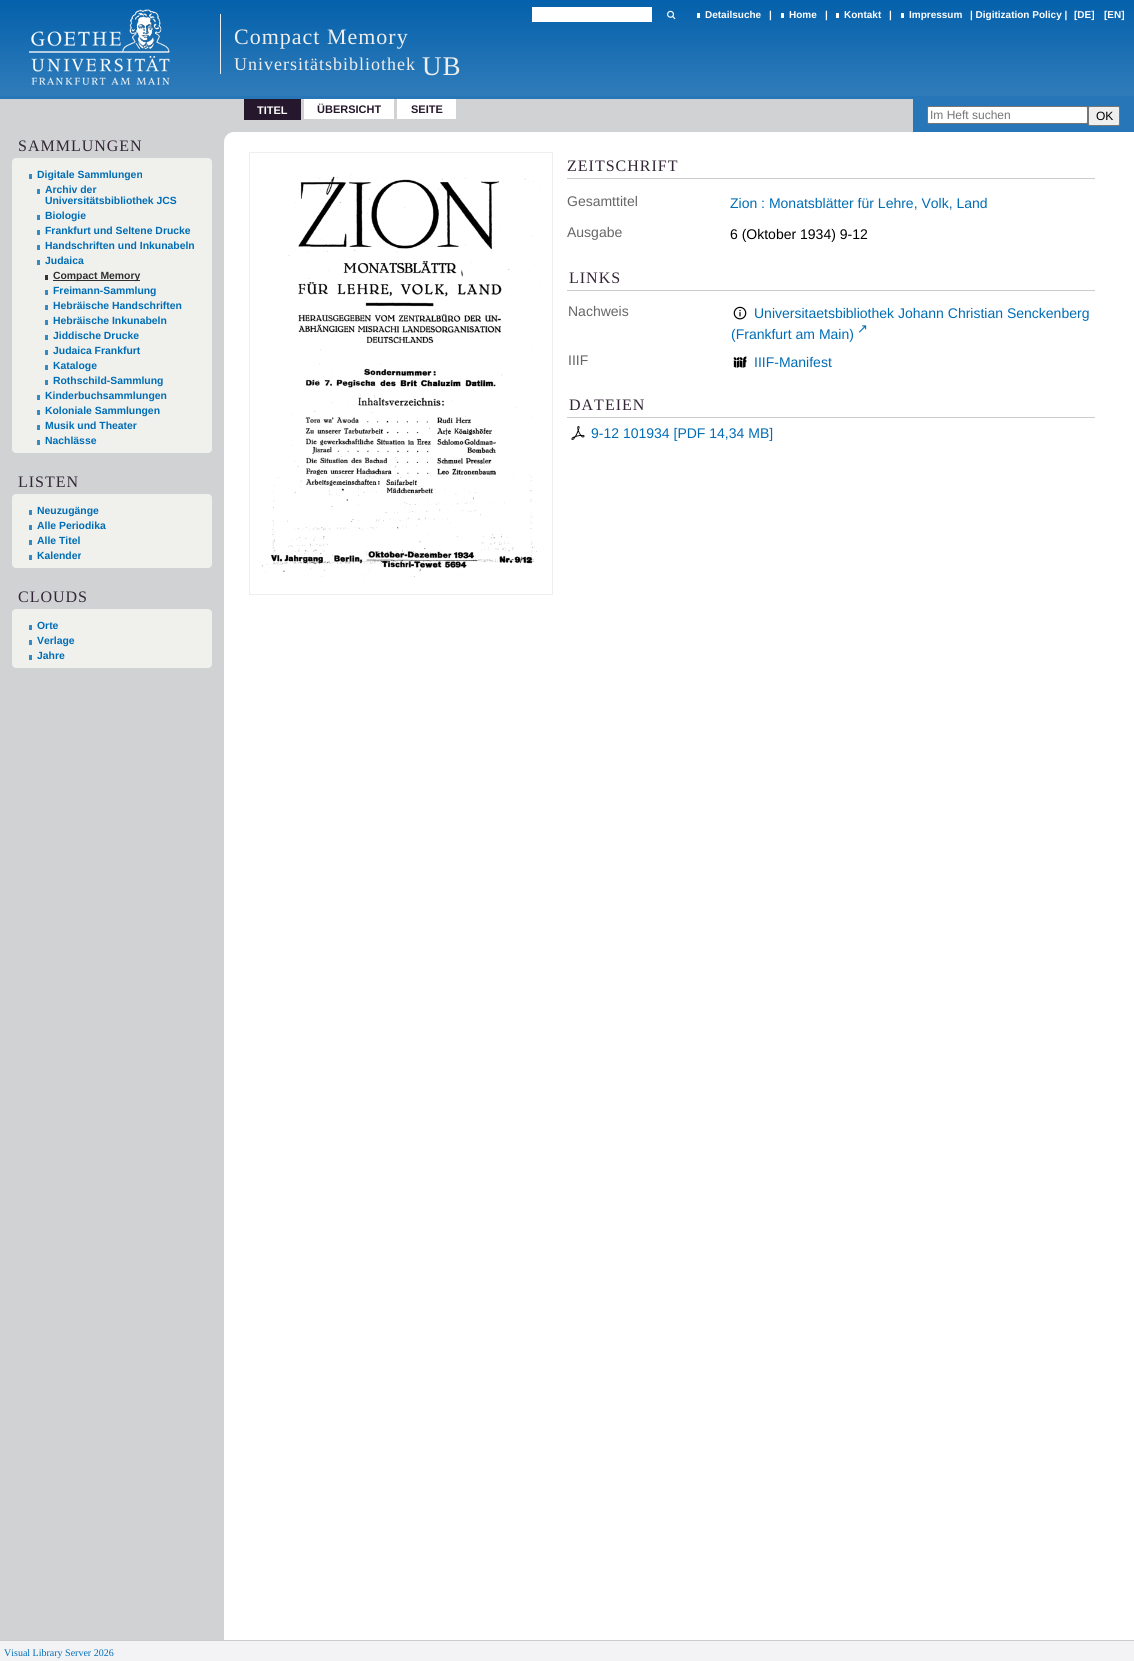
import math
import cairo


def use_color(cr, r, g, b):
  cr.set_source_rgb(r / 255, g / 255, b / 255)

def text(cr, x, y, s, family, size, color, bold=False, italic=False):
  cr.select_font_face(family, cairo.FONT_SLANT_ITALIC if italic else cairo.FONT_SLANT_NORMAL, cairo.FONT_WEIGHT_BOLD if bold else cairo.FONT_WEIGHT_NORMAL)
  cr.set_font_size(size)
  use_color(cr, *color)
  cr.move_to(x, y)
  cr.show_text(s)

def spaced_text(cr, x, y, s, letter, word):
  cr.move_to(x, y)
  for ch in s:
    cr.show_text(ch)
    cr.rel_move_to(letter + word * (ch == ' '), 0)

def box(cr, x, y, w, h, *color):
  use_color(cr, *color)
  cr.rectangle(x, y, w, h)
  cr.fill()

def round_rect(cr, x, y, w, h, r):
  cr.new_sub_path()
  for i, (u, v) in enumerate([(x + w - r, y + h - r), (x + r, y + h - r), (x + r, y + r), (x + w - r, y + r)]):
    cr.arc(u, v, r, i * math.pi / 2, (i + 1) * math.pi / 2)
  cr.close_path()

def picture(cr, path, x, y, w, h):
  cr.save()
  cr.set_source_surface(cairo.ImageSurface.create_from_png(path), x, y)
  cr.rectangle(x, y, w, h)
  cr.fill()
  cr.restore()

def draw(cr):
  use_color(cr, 39, 118, 184)
  cr.paint()
  picture(cr, "img_01.png", 0, 0, 1134, 96)
  picture(cr, "img_02.png", 29, 9, 141, 76)
  box(cr, 532, 7, 120, 15, 255, 255, 255)
  picture(cr, "img_03.png", 667, 10, 9, 10)
  box(cr, 697, 13, 3, 5, 255, 255, 255)
  box(cr, 781, 13, 3, 5, 255, 255, 255)
  box(cr, 836, 13, 3, 5, 255, 255, 255)
  box(cr, 901, 13, 3, 5, 255, 255, 255)
  box(cr, 220, 14, 1, 60, 238, 238, 238)
  box(cr, 0, 99, 913, 33, 209, 210, 212)
  box(cr, 244, 99, 57, 21, 37, 24, 44)
  box(cr, 304, 99, 90, 20, 255, 255, 255)
  box(cr, 397, 99, 59, 20, 255, 255, 255)
  round_rect(cr, 927.5, 106.5, 160, 17, 1.5)
  cr.fill_preserve()
  use_color(cr, 118, 118, 118)
  cr.set_line_width(1)
  cr.stroke()
  use_color(cr, 239, 239, 239)
  round_rect(cr, 1088.5, 106.5, 31, 19, 1.5)
  cr.fill_preserve()
  use_color(cr, 118, 118, 118)
  cr.stroke()
  box(cr, 0, 132, 234, 1508, 209, 210, 212)
  use_color(cr, 240, 240, 236)
  round_rect(cr, 12.5, 158.5, 199, 294, 3.5)
  cr.fill_preserve()
  cr.stroke()
  box(cr, 29, 174, 3, 5, 49, 140, 198)
  box(cr, 37, 189, 3, 5, 49, 140, 198)
  box(cr, 37, 215, 3, 5, 49, 140, 198)
  box(cr, 37, 230, 3, 5, 49, 140, 198)
  box(cr, 37, 245, 3, 5, 49, 140, 198)
  box(cr, 37, 260, 3, 5, 49, 140, 198)
  box(cr, 45, 275, 3, 5, 52, 52, 52)
  box(cr, 53, 280, 87, 1, 48, 48, 48)
  box(cr, 45, 290, 3, 5, 49, 140, 198)
  box(cr, 45, 305, 3, 5, 49, 140, 198)
  box(cr, 45, 320, 3, 5, 49, 140, 198)
  box(cr, 45, 335, 3, 5, 49, 140, 198)
  box(cr, 45, 350, 3, 5, 49, 140, 198)
  box(cr, 45, 365, 3, 5, 49, 140, 198)
  box(cr, 45, 380, 3, 5, 49, 140, 198)
  box(cr, 37, 395, 3, 5, 49, 140, 198)
  box(cr, 37, 410, 3, 5, 49, 140, 198)
  box(cr, 37, 425, 3, 5, 49, 140, 198)
  box(cr, 37, 440, 3, 5, 49, 140, 198)
  use_color(cr, 240, 240, 236)
  round_rect(cr, 12.5, 494.5, 199, 73, 3.5)
  cr.fill_preserve()
  cr.stroke()
  box(cr, 29, 510, 3, 5, 49, 140, 198)
  box(cr, 29, 525, 3, 5, 49, 140, 198)
  box(cr, 29, 540, 3, 5, 49, 140, 198)
  box(cr, 29, 555, 3, 5, 49, 140, 198)
  use_color(cr, 240, 240, 236)
  round_rect(cr, 12.5, 609.5, 199, 58, 3.5)
  cr.fill_preserve()
  cr.stroke()
  box(cr, 29, 625, 3, 5, 49, 140, 198)
  box(cr, 29, 640, 3, 5, 49, 140, 198)
  box(cr, 29, 655, 3, 5, 49, 140, 198)
  use_color(cr, 255, 255, 255)
  cr.new_path()
  cr.move_to(234, 132)
  cr.line_to(1134, 132)
  cr.line_to(1134, 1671)
  cr.line_to(224, 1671)
  cr.line_to(224, 142)
  cr.curve_to(224, 136.5, 228.5, 132, 234, 132)
  cr.close_path()
  cr.fill()
  cr.rectangle(249.5, 152.5, 303, 442)
  use_color(cr, 238, 238, 236)
  cr.stroke()
  picture(cr, "img_04.png", 250, 153, 302, 441)
  box(cr, 567, 178, 528, 1, 204, 204, 204)
  box(cr, 567, 290, 528, 1, 204, 204, 204)
  picture(cr, "img_05.png", 733, 306, 14, 14)
  picture(cr, "img_06.png", 733, 356, 14, 12)
  box(cr, 567, 417, 528, 1, 204, 204, 204)
  picture(cr, "img_07.png", 571, 426, 14, 15)
  box(cr, 0, 1641, 1134, 20, 243, 243, 246)
  box(cr, 0, 1640, 1134, 1, 204, 204, 204)
  text(cr, 705, 18, "Detailsuche", "Liberation Sans", 10, (255, 255, 255), bold=True)
  text(cr, 769, 18, "|", "Liberation Sans", 10, (255, 255, 255), bold=True)
  text(cr, 789, 18, "Home", "Liberation Sans", 10, (255, 255, 255), bold=True)
  text(cr, 825, 18, "|", "Liberation Sans", 10, (255, 255, 255), bold=True)
  text(cr, 844, 18, "Kontakt", "Liberation Sans", 10, (255, 255, 255), bold=True)
  text(cr, 889, 18, "|", "Liberation Sans", 10, (255, 255, 255), bold=True)
  text(cr, 909, 18, "Impressum", "Liberation Sans", 10, (255, 255, 255), bold=True)
  text(cr, 970, 18, "| Digitization Policy |", "Liberation Sans", 10, (255, 255, 255), bold=True)
  text(cr, 1074, 18, "[DE]", "Liberation Sans", 10, (255, 255, 255), bold=True)
  text(cr, 1104, 18, "[EN]", "Liberation Sans", 10, (255, 255, 255), bold=True)
  cr.select_font_face("Liberation Serif")
  cr.set_font_size(22)
  use_color(cr, 238, 238, 238)
  spaced_text(cr, 234, 44, "Compact Memory", 1, 0)
  cr.set_font_size(18)
  spaced_text(cr, 234, 70, "Universitätsbibliothek", 1, 0)
  cr.set_font_size(27)
  spaced_text(cr, 422, 75, "UB", 1, 0)
  text(cr, 257, 114, "TITEL", "Liberation Sans", 11, (255, 255, 255), bold=True)
  text(cr, 317, 113, "ÜBERSICHT", "Liberation Sans", 11, (37, 24, 44), bold=True)
  text(cr, 411, 113, "SEITE", "Liberation Sans", 11, (37, 24, 44), bold=True)
  text(cr, 930, 119, "Im Heft suchen", "Liberation Sans", 12, (117, 117, 117))
  text(cr, 1096, 120, "OK", "Liberation Sans", 12, (0, 0, 0))
  cr.select_font_face("Liberation Serif")
  cr.set_font_size(16)
  use_color(cr, 51, 38, 54)
  spaced_text(cr, 18, 151, "SAMMLUNGEN", 1, 0)
  text(cr, 37, 178, "Digitale Sammlungen", "Liberation Sans", 10.4, (0, 109, 181), bold=True)
  text(cr, 45, 193, "Archiv der", "Liberation Sans", 10.4, (0, 109, 181), bold=True)
  text(cr, 45, 204, "Universitätsbibliothek JCS", "Liberation Sans", 10.4, (0, 109, 181), bold=True)
  text(cr, 45, 219, "Biologie", "Liberation Sans", 10.4, (0, 109, 181), bold=True)
  text(cr, 45, 234, "Frankfurt und Seltene Drucke", "Liberation Sans", 10.4, (0, 109, 181), bold=True)
  text(cr, 45, 249, "Handschriften und Inkunabeln", "Liberation Sans", 10.4, (0, 109, 181), bold=True)
  text(cr, 45, 264, "Judaica", "Liberation Sans", 10.4, (0, 109, 181), bold=True)
  text(cr, 53, 279, "Compact Memory", "Liberation Sans", 10.4, (48, 48, 48), bold=True)
  text(cr, 53, 294, "Freimann-Sammlung", "Liberation Sans", 10.4, (0, 109, 181), bold=True)
  text(cr, 53, 309, "Hebräische Handschriften", "Liberation Sans", 10.4, (0, 109, 181), bold=True)
  text(cr, 53, 324, "Hebräische Inkunabeln", "Liberation Sans", 10.4, (0, 109, 181), bold=True)
  text(cr, 53, 339, "Jiddische Drucke", "Liberation Sans", 10.4, (0, 109, 181), bold=True)
  text(cr, 53, 354, "Judaica Frankfurt", "Liberation Sans", 10.4, (0, 109, 181), bold=True)
  text(cr, 53, 369, "Kataloge", "Liberation Sans", 10.4, (0, 109, 181), bold=True)
  text(cr, 53, 384, "Rothschild-Sammlung", "Liberation Sans", 10.4, (0, 109, 181), bold=True)
  text(cr, 45, 399, "Kinderbuchsammlungen", "Liberation Sans", 10.4, (0, 109, 181), bold=True)
  text(cr, 45, 414, "Koloniale Sammlungen", "Liberation Sans", 10.4, (0, 109, 181), bold=True)
  text(cr, 45, 429, "Musik und Theater", "Liberation Sans", 10.4, (0, 109, 181), bold=True)
  text(cr, 45, 444, "Nachlässe", "Liberation Sans", 10.4, (0, 109, 181), bold=True)
  cr.select_font_face("Liberation Serif")
  cr.set_font_size(16)
  use_color(cr, 51, 38, 54)
  spaced_text(cr, 18, 487, "LISTEN", 1, 0)
  text(cr, 37, 514, "Neuzugänge", "Liberation Sans", 10.4, (0, 109, 181), bold=True)
  text(cr, 37, 529, "Alle Periodika", "Liberation Sans", 10.4, (0, 109, 181), bold=True)
  text(cr, 37, 544, "Alle Titel", "Liberation Sans", 10.4, (0, 109, 181), bold=True)
  text(cr, 37, 559, "Kalender", "Liberation Sans", 10.4, (0, 109, 181), bold=True)
  cr.select_font_face("Liberation Serif")
  cr.set_font_size(16)
  use_color(cr, 51, 38, 54)
  spaced_text(cr, 18, 602, "CLOUDS", 1, 0)
  text(cr, 37, 629, "Orte", "Liberation Sans", 10.4, (0, 109, 181), bold=True)
  text(cr, 37, 644, "Verlage", "Liberation Sans", 10.4, (0, 109, 181), bold=True)
  text(cr, 37, 659, "Jahre", "Liberation Sans", 10.4, (0, 109, 181), bold=True)
  cr.select_font_face("Liberation Serif")
  cr.set_font_size(16)
  use_color(cr, 51, 38, 54)
  spaced_text(cr, 567, 171, "ZEITSCHRIFT", 1, 0)
  text(cr, 567, 206, "Gesamttitel", "Liberation Sans", 14, (102, 102, 102))
  text(cr, 730, 208, "Zion : Monatsblätter für Lehre, Volk, Land", "Liberation Sans", 14, (0, 109, 181))
  text(cr, 567, 237, "Ausgabe", "Liberation Sans", 14, (102, 102, 102))
  text(cr, 730, 239, "6 (Oktober 1934) 9-12", "Liberation Sans", 14, (0, 0, 0))
  cr.select_font_face("Liberation Serif")
  cr.set_font_size(16)
  use_color(cr, 51, 38, 54)
  spaced_text(cr, 569, 283, "LINKS", 1, 0)
  text(cr, 568, 316, "Nachweis", "Liberation Sans", 14, (102, 102, 102))
  text(cr, 754, 318, "Universitaetsbibliothek Johann Christian Senckenberg", "Liberation Sans", 14, (0, 109, 181))
  text(cr, 731, 339, "(Frankfurt am Main)", "Liberation Sans", 14, (0, 109, 181))
  text(cr, 857, 333, "↗", "DejaVu Sans", 13, (0, 109, 181))
  text(cr, 568, 365, "IIIF", "Liberation Sans", 14, (102, 102, 102))
  text(cr, 754, 367, "IIIF-Manifest", "Liberation Sans", 14, (0, 109, 181))
  cr.select_font_face("Liberation Serif")
  cr.set_font_size(16)
  use_color(cr, 51, 38, 54)
  spaced_text(cr, 569, 410, "DATEIEN", 1, 0)
  text(cr, 591, 438, "9-12 101934 [PDF 14,34 MB]", "Liberation Sans", 14, (0, 109, 181))
  text(cr, 4, 1656, "Visual Library Server 2026", "Liberation Serif", 10, (0, 109, 181))


surface = cairo.ImageSurface(cairo.FORMAT_RGB24, 1134, 1661)
cr = cairo.Context(surface)
options = cairo.FontOptions()
options.set_hint_metrics(cairo.HINT_METRICS_OFF)
options.set_hint_style(cairo.HINT_STYLE_NONE)
cr.set_font_options(options)
cr.set_miter_limit(4)
draw(cr)
surface.write_to_png("out.png")
